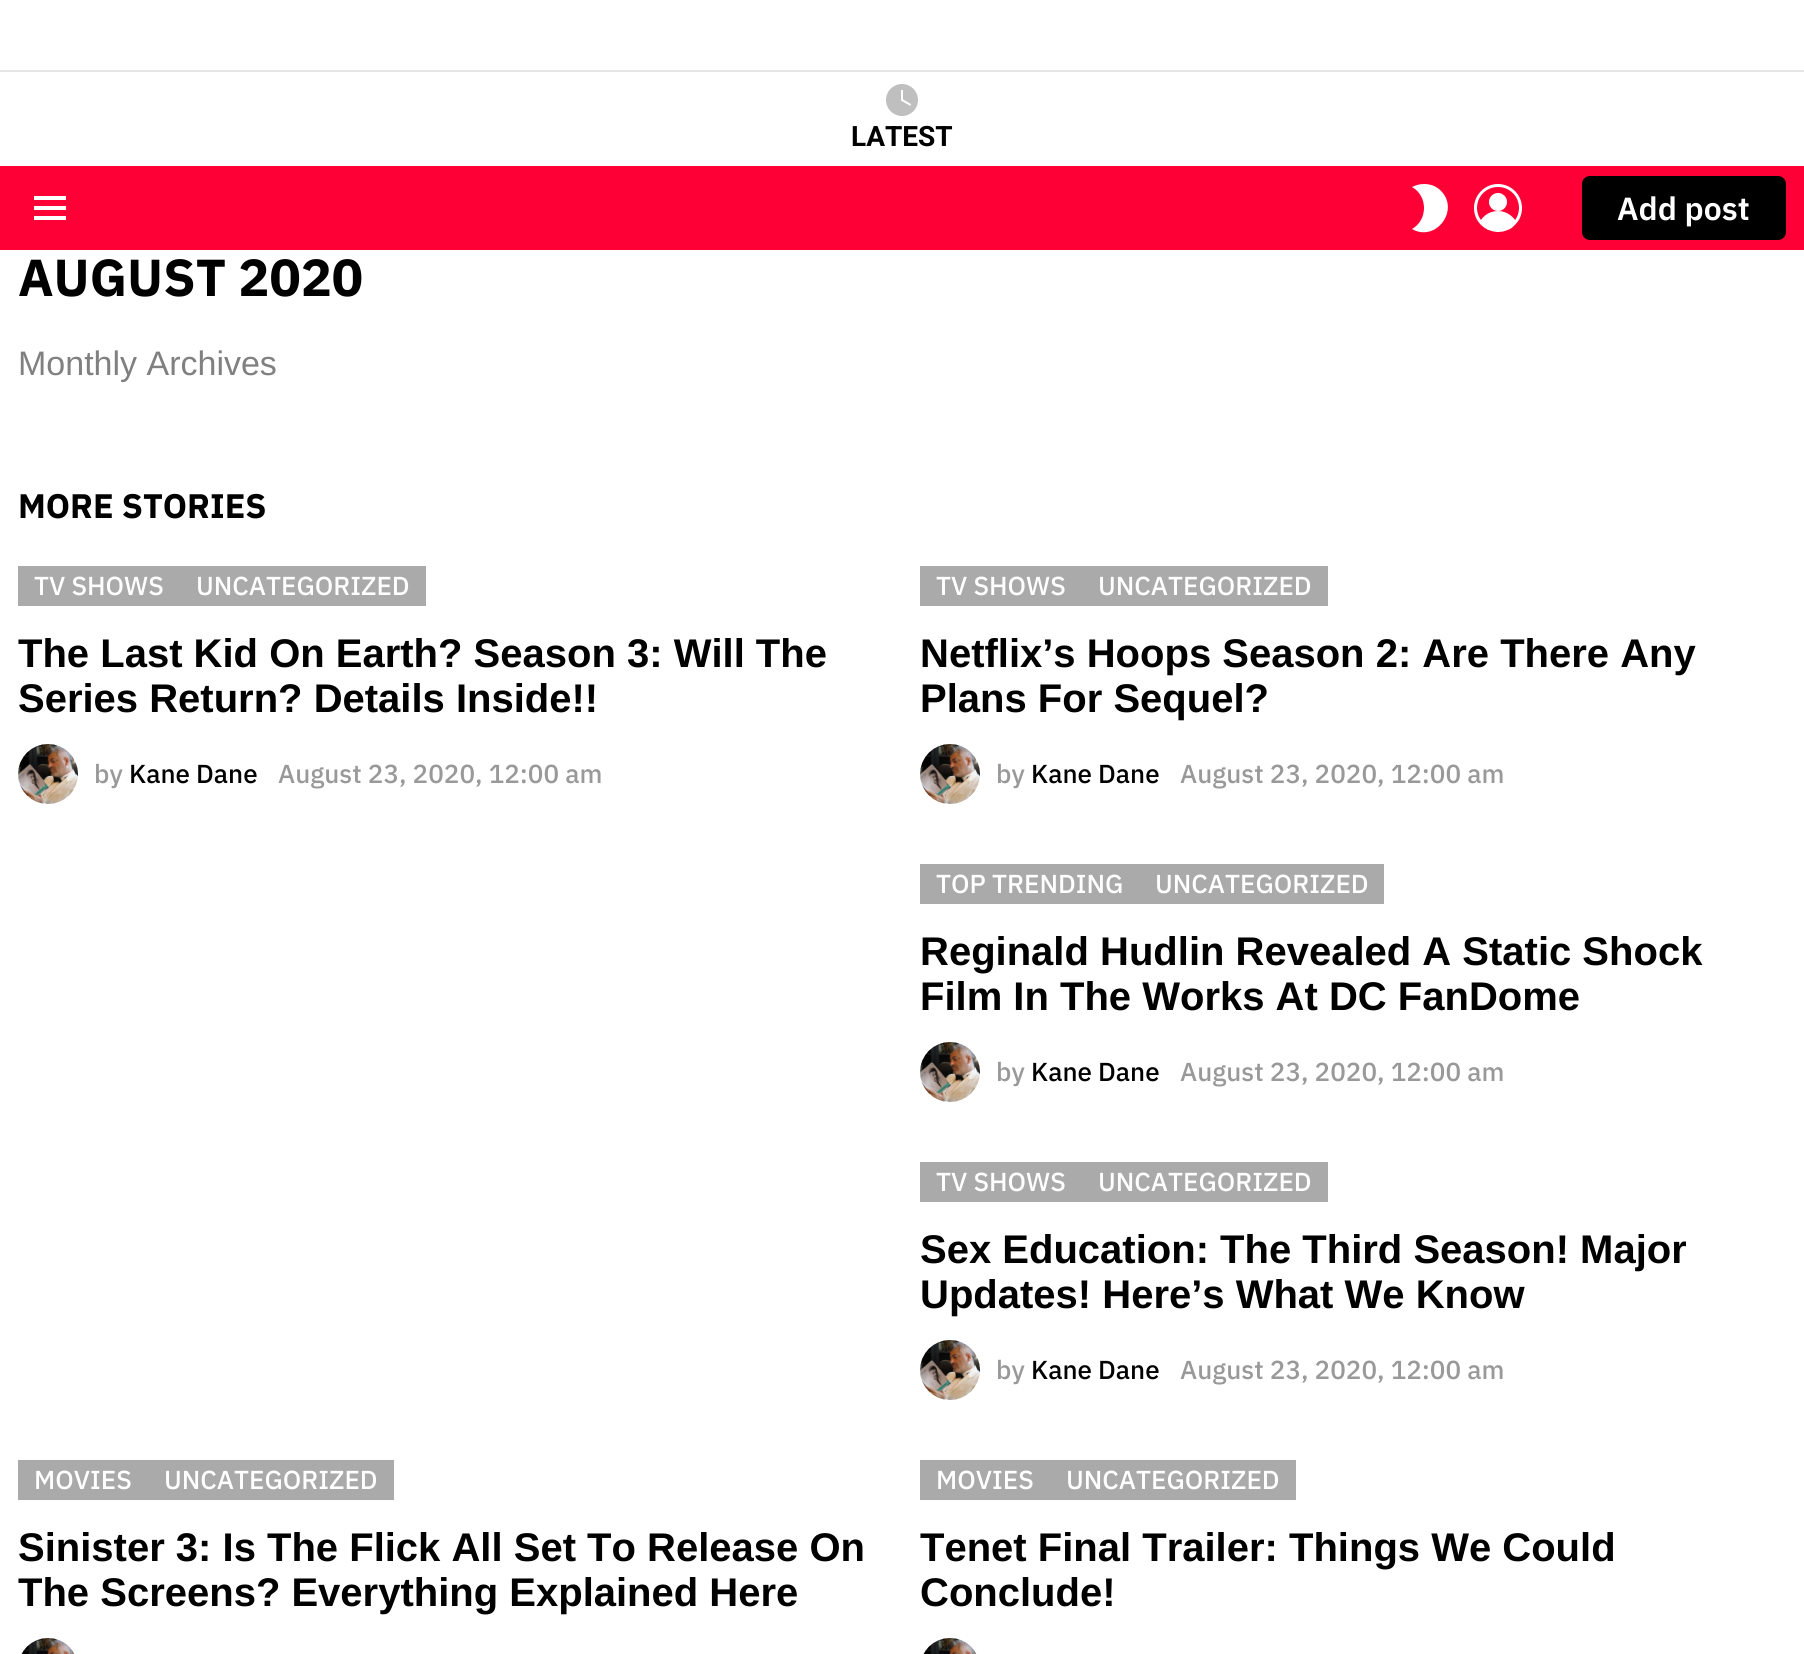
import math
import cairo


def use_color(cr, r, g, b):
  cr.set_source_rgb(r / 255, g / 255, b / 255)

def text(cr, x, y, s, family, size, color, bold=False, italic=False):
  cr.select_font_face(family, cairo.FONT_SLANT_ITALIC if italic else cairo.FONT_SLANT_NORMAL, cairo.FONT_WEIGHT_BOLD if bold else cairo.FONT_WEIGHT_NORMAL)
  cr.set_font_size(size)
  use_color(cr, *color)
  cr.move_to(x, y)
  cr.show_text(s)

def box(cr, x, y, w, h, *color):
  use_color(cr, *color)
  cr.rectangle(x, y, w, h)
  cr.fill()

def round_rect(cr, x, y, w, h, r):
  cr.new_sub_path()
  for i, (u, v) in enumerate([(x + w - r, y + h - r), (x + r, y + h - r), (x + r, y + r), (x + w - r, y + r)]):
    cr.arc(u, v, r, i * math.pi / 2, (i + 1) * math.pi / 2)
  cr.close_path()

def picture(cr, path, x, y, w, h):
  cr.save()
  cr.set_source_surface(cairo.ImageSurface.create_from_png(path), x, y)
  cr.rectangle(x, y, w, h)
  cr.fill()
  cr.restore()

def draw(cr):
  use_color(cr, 255, 255, 255)
  cr.paint()
  box(cr, 0, 70, 1804, 2, 230, 230, 230)
  picture(cr, "img_01.png", 886, 84, 32, 32)
  box(cr, 0, 166, 1804, 84, 255, 0, 54)
  picture(cr, "img_02.png", 34, 196, 32, 24)
  use_color(cr, 255, 255, 255)
  cr.new_path()
  cr.move_to(1424, 184)
  cr.curve_to(1420, 184, 1416, 185, 1412, 187)
  cr.curve_to(1428, 196, 1428, 220, 1412, 229)
  cr.curve_to(1436, 243, 1461, 209, 1440, 190)
  cr.curve_to(1436, 186, 1430, 184, 1424, 184)
  cr.close_path()
  cr.fill()
  picture(cr, "img_03.png", 1474, 184, 48, 48)
  use_color(cr, 0, 0, 0)
  round_rect(cr, 1582, 176, 204, 64, 8)
  cr.fill()
  box(cr, 18, 566, 408, 40, 170, 170, 170)
  picture(cr, "img_04.png", 18, 744, 60, 60)
  box(cr, 920, 566, 408, 40, 170, 170, 170)
  picture(cr, "img_04.png", 920, 744, 60, 60)
  box(cr, 920, 864, 464, 40, 170, 170, 170)
  picture(cr, "img_05.png", 920, 1042, 60, 60)
  box(cr, 920, 1162, 408, 40, 170, 170, 170)
  picture(cr, "img_05.png", 920, 1340, 60, 60)
  box(cr, 18, 1460, 376, 40, 170, 170, 170)
  picture(cr, "img_06.png", 21, 1638, 54, 16)
  box(cr, 920, 1460, 376, 40, 170, 170, 170)
  picture(cr, "img_06.png", 923, 1638, 54, 16)
  text(cr, 851, 146, "LATEST", "Roboto", 28, (0, 0, 0), bold=True)
  text(cr, 1617, 220, "Add post", "IBM Plex Sans SemiBold", 32, (255, 255, 255))
  text(cr, 18, 296, "AUGUST 2020", "IBM Plex Sans", 52, (0, 0, 0), bold=True)
  text(cr, 18, 375, "Monthly Archives", "Liberation Sans", 34, (128, 128, 128))
  text(cr, 18, 518, "MORE STORIES", "IBM Plex Sans", 34, (0, 0, 0), bold=True)
  text(cr, 34, 595, "TV SHOWS", "IBM Plex Sans Medium", 26, (255, 255, 255))
  text(cr, 196, 595, "UNCATEGORIZED", "IBM Plex Sans Medium", 26, (255, 255, 255))
  text(cr, 18, 667, "The Last Kid On Earth? Season 3: Will The", "Liberation Sans", 40, (0, 0, 0), bold=True)
  text(cr, 18, 712, "Series Return? Details Inside!!", "Liberation Sans", 40, (0, 0, 0), bold=True)
  text(cr, 94, 783, "by", "IBM Plex Sans Medium", 26, (153, 153, 153))
  text(cr, 129, 783, "Kane Dane", "IBM Plex Sans Medium", 26, (0, 0, 0))
  text(cr, 278, 783, "August 23, 2020, 12:00 am", "IBM Plex Sans Medium", 26, (153, 153, 153))
  text(cr, 936, 595, "TV SHOWS", "IBM Plex Sans Medium", 26, (255, 255, 255))
  text(cr, 1098, 595, "UNCATEGORIZED", "IBM Plex Sans Medium", 26, (255, 255, 255))
  text(cr, 920, 667, "Netflix’s Hoops Season 2: Are There Any", "Liberation Sans", 40, (0, 0, 0), bold=True)
  text(cr, 920, 712, "Plans For Sequel?", "Liberation Sans", 40, (0, 0, 0), bold=True)
  text(cr, 996, 783, "by", "IBM Plex Sans Medium", 26, (153, 153, 153))
  text(cr, 1031, 783, "Kane Dane", "IBM Plex Sans Medium", 26, (0, 0, 0))
  text(cr, 1180, 783, "August 23, 2020, 12:00 am", "IBM Plex Sans Medium", 26, (153, 153, 153))
  text(cr, 936, 893, "TOP TRENDING", "IBM Plex Sans Medium", 26, (255, 255, 255))
  text(cr, 1155, 893, "UNCATEGORIZED", "IBM Plex Sans Medium", 26, (255, 255, 255))
  text(cr, 920, 965, "Reginald Hudlin Revealed A Static Shock", "Liberation Sans", 40, (0, 0, 0), bold=True)
  text(cr, 920, 1010, "Film In The Works At DC FanDome", "Liberation Sans", 40, (0, 0, 0), bold=True)
  text(cr, 996, 1081, "by", "IBM Plex Sans Medium", 26, (153, 153, 153))
  text(cr, 1031, 1081, "Kane Dane", "IBM Plex Sans Medium", 26, (0, 0, 0))
  text(cr, 1180, 1081, "August 23, 2020, 12:00 am", "IBM Plex Sans Medium", 26, (153, 153, 153))
  text(cr, 936, 1191, "TV SHOWS", "IBM Plex Sans Medium", 26, (255, 255, 255))
  text(cr, 1098, 1191, "UNCATEGORIZED", "IBM Plex Sans Medium", 26, (255, 255, 255))
  text(cr, 920, 1263, "Sex Education: The Third Season! Major", "Liberation Sans", 40, (0, 0, 0), bold=True)
  text(cr, 920, 1308, "Updates! Here’s What We Know", "Liberation Sans", 40, (0, 0, 0), bold=True)
  text(cr, 996, 1379, "by", "IBM Plex Sans Medium", 26, (153, 153, 153))
  text(cr, 1031, 1379, "Kane Dane", "IBM Plex Sans Medium", 26, (0, 0, 0))
  text(cr, 1180, 1379, "August 23, 2020, 12:00 am", "IBM Plex Sans Medium", 26, (153, 153, 153))
  text(cr, 34, 1489, "MOVIES", "IBM Plex Sans Medium", 26, (255, 255, 255))
  text(cr, 164, 1489, "UNCATEGORIZED", "IBM Plex Sans Medium", 26, (255, 255, 255))
  text(cr, 18, 1561, "Sinister 3: Is The Flick All Set To Release On", "Liberation Sans", 40, (0, 0, 0), bold=True)
  text(cr, 18, 1606, "The Screens? Everything Explained Here", "Liberation Sans", 40, (0, 0, 0), bold=True)
  text(cr, 936, 1489, "MOVIES", "IBM Plex Sans Medium", 26, (255, 255, 255))
  text(cr, 1066, 1489, "UNCATEGORIZED", "IBM Plex Sans Medium", 26, (255, 255, 255))
  text(cr, 920, 1561, "Tenet Final Trailer: Things We Could", "Liberation Sans", 40, (0, 0, 0), bold=True)
  text(cr, 920, 1606, "Conclude!", "Liberation Sans", 40, (0, 0, 0), bold=True)


surface = cairo.ImageSurface(cairo.FORMAT_RGB24, 1804, 1654)
cr = cairo.Context(surface)
options = cairo.FontOptions()
options.set_hint_metrics(cairo.HINT_METRICS_OFF)
options.set_hint_style(cairo.HINT_STYLE_NONE)
cr.set_font_options(options)
cr.set_miter_limit(4)
draw(cr)
surface.write_to_png("out.png")
